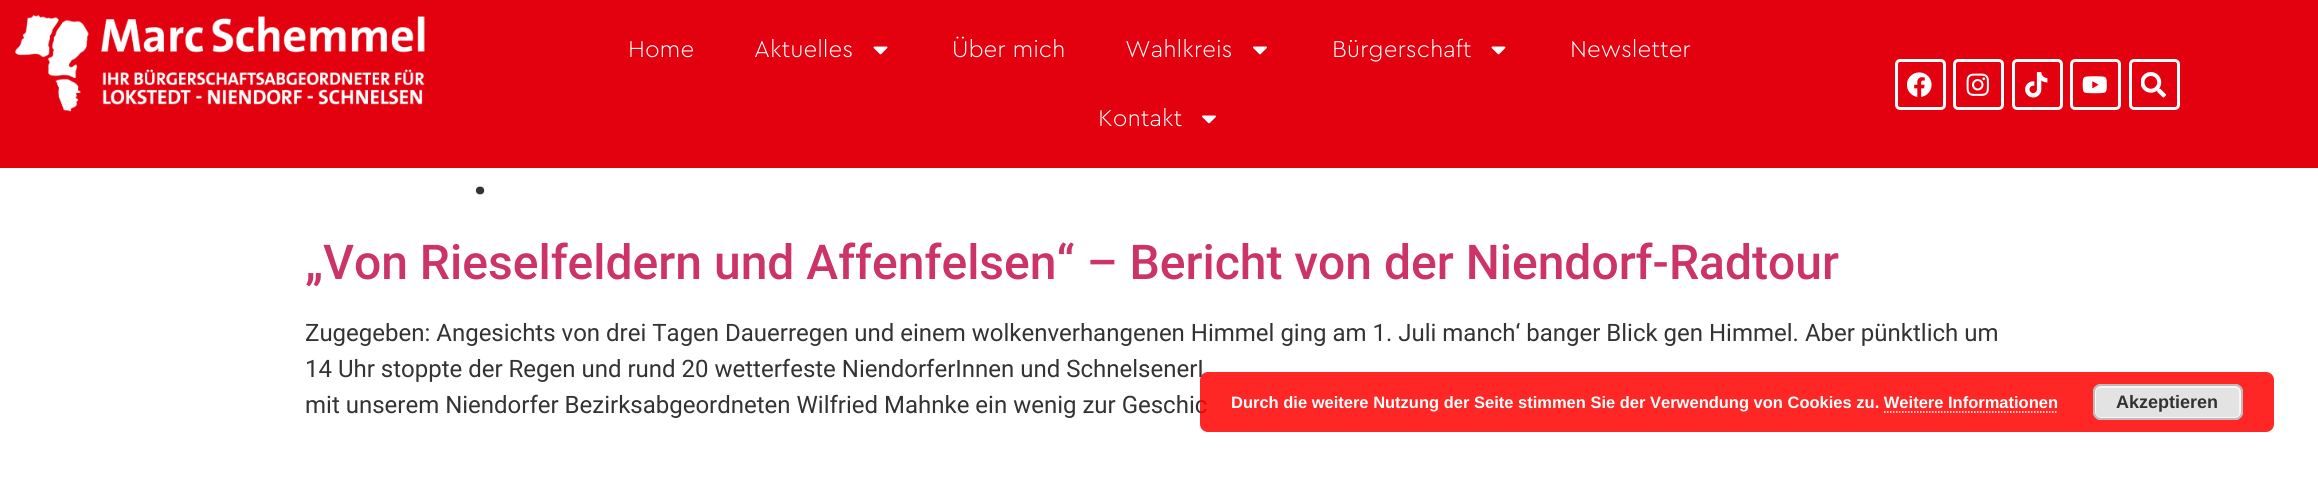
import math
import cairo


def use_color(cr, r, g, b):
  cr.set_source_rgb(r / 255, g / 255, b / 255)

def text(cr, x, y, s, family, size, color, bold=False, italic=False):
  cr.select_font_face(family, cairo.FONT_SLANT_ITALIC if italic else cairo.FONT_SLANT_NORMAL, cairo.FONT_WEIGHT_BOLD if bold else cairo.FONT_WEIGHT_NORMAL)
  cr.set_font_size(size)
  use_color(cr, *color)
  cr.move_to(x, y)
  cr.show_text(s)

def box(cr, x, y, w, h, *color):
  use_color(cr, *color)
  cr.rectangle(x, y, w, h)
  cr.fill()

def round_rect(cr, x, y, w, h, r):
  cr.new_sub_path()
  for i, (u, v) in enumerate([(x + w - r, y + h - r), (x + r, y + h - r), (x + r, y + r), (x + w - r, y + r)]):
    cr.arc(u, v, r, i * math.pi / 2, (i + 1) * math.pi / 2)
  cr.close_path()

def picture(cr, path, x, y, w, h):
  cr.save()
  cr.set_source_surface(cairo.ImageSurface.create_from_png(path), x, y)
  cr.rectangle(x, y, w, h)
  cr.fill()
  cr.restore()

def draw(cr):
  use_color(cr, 255, 255, 255)
  cr.paint()
  box(cr, 0, 0, 2318, 168, 227, 0, 15)
  picture(cr, "img_01.png", 15, 15, 410, 97)
  picture(cr, "img_02.png", 873, 46, 15, 9)
  picture(cr, "img_03.png", 1253, 46, 14, 9)
  picture(cr, "img_02.png", 1491, 46, 15, 9)
  picture(cr, "img_03.png", 1202, 115, 14, 9)
  round_rect(cr, 1896.5, 60.5, 48, 48, 3.5)
  use_color(cr, 255, 255, 255)
  cr.set_line_width(3)
  cr.stroke()
  picture(cr, "img_04.png", 1907, 72, 25, 25)
  round_rect(cr, 1954.5, 60.5, 48, 48, 3.5)
  cr.stroke()
  picture(cr, "img_05.png", 1966, 73, 23, 23)
  round_rect(cr, 2013.5, 60.5, 48, 48, 3.5)
  cr.stroke()
  picture(cr, "img_06.png", 2025, 72, 23, 26)
  round_rect(cr, 2071.5, 60.5, 48, 48, 3.5)
  cr.stroke()
  picture(cr, "img_07.png", 2082, 76, 25, 18)
  round_rect(cr, 2130.5, 60.5, 48, 48, 3.5)
  cr.stroke()
  picture(cr, "img_08.png", 2141, 72, 25, 26)
  text(cr, 628, 57, "Home", "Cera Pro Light", 24, (255, 255, 255))
  text(cr, 754, 57, "Aktuelles", "Cera Pro Light", 24, (255, 255, 255))
  text(cr, 952, 57, "Über mich", "Cera Pro Light", 24, (255, 255, 255))
  text(cr, 1125, 57, "Wahlkreis", "Cera Pro Light", 24, (255, 255, 255))
  text(cr, 1332, 57, "Bürgerschaft", "Cera Pro Light", 24, (255, 255, 255))
  text(cr, 1570, 57, "Newsletter", "Cera Pro Light", 24, (255, 255, 255))
  text(cr, 1098, 126, "Kontakt", "Cera Pro Light", 24, (255, 255, 255))
  text(cr, 472, 194, ".", "Roboto Medium", 60, (51, 51, 51))
  text(cr, 305, 279, "„Von Rieselfeldern und Affenfelsen“ – Bericht von der Niendorf-Radtour", "Roboto Medium", 48, (204, 51, 102))
  text(cr, 305, 341, "Zugegeben: Angesichts von drei Tagen Dauerregen und einem wolkenverhangenen Himmel ging am 1. Juli manch‘ banger Blick gen Himmel. Aber pünktlich um", "Roboto", 24, (51, 51, 51))
  text(cr, 305, 377, "14 Uhr stoppte der Regen und rund 20 wetterfeste NiendorferInnen und SchnelsenerI", "Roboto", 24, (51, 51, 51))
  text(cr, 305, 413, "mit unserem Niendorfer Bezirksabgeordneten Wilfried Mahnke ein wenig zur Geschic", "Roboto", 24, (51, 51, 51))
  cr.set_source_rgba(1, 0, 0, 0.85)
  round_rect(cr, 1200, 372, 1074, 60, 8)
  cr.fill()
  text(cr, 1231, 408, "Durch die weitere Nutzung der Seite stimmen Sie der Verwendung von Cookies zu. Weitere Informationen", "Liberation Sans", 16.5, (255, 255, 255), bold=True)
  use_color(cr, 227, 227, 227)
  round_rect(cr, 2093, 384, 150, 36, 8)
  cr.fill()
  round_rect(cr, 2095, 387, 145, 31, 5)
  use_color(cr, 246, 246, 246)
  cr.set_line_width(2)
  cr.stroke()
  round_rect(cr, 2094, 385, 148, 34, 7)
  use_color(cr, 187, 187, 187)
  cr.stroke()
  text(cr, 2116, 408, "Akzeptieren", "Liberation Sans", 18, (51, 51, 51), bold=True)
  cr.new_path()
  cr.move_to(1884, 412)
  cr.line_to(2058, 412)
  use_color(cr, 255, 255, 255)
  cr.set_line_width(1.5)
  cr.set_dash([1.5, 1.5])
  cr.stroke()


surface = cairo.ImageSurface(cairo.FORMAT_RGB24, 2318, 477)
cr = cairo.Context(surface)
options = cairo.FontOptions()
options.set_hint_metrics(cairo.HINT_METRICS_OFF)
options.set_hint_style(cairo.HINT_STYLE_NONE)
cr.set_font_options(options)
cr.set_miter_limit(4)
draw(cr)
surface.write_to_png("out.png")
